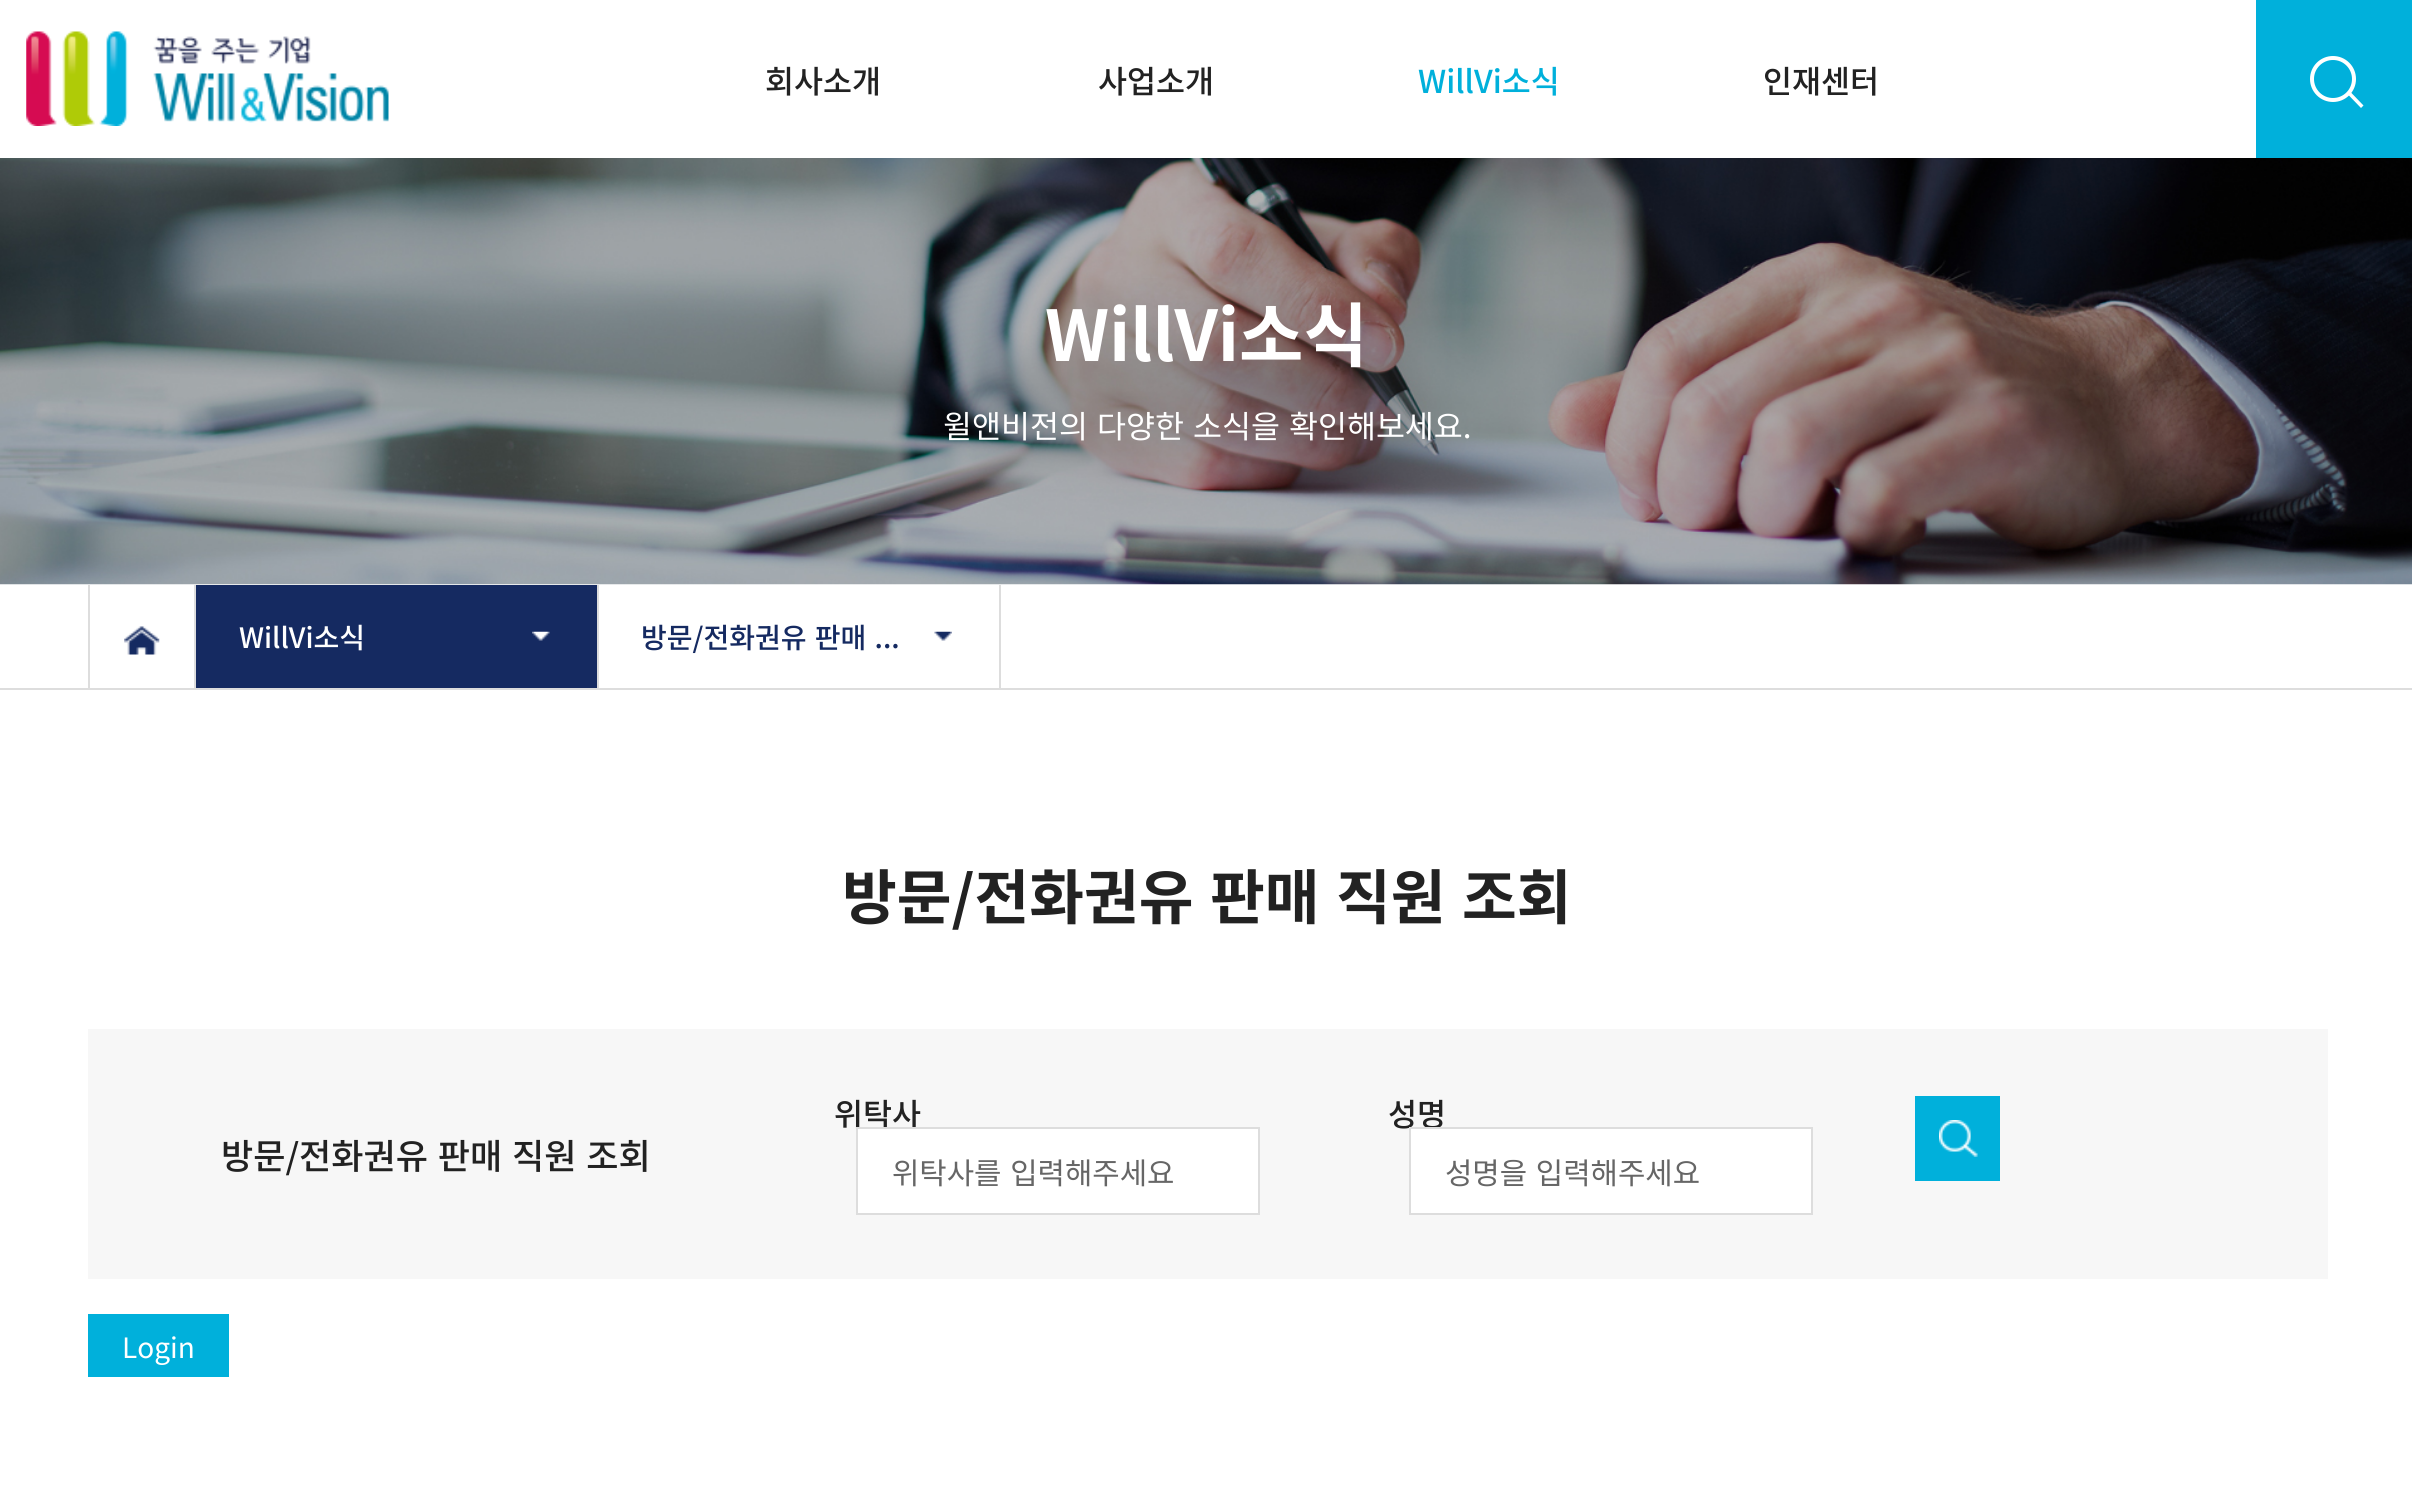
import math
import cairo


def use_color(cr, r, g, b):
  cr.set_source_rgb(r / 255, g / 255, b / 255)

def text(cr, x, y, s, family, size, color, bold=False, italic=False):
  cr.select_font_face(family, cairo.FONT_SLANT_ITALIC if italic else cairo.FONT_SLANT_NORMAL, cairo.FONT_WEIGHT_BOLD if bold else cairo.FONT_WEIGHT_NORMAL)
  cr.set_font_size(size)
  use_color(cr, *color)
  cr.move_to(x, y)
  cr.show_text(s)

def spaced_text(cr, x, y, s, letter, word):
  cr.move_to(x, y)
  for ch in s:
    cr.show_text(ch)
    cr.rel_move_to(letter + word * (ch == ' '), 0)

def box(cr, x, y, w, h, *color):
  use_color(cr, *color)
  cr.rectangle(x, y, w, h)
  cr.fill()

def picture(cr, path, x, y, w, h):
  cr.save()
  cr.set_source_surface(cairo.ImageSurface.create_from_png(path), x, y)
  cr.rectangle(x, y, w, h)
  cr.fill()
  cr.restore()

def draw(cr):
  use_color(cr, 255, 255, 255)
  cr.paint()
  picture(cr, "img_01.png", 26, 31, 363, 95)
  box(cr, 2256, 0, 156, 158, 0, 176, 219)
  cr.arc(2333, 79, 21, 0, 2 * math.pi)
  use_color(cr, 255, 255, 255)
  cr.set_line_width(4)
  cr.stroke()
  cr.new_path()
  cr.move_to(2347.5, 94)
  cr.line_to(2350, 91.5)
  cr.line_to(2363.5, 105.5)
  cr.line_to(2361, 108)
  cr.close_path()
  cr.fill()
  picture(cr, "img_02.png", 0, 158, 2412, 427)
  box(cr, 0, 688, 2412, 2, 221, 221, 221)
  box(cr, 194, 585, 2, 103, 221, 221, 221)
  box(cr, 88, 585, 2, 103, 221, 221, 221)
  picture(cr, "img_03.png", 124, 626, 36, 29)
  box(cr, 597, 585, 2, 103, 221, 221, 221)
  box(cr, 196, 585, 401, 103, 21, 42, 97)
  picture(cr, "img_04.png", 532, 631, 18, 10)
  box(cr, 999, 585, 2, 103, 221, 221, 221)
  picture(cr, "img_05.png", 934, 631, 18, 10)
  box(cr, 88, 1029, 2240, 250, 247, 247, 247)
  box(cr, 1915, 1096, 85, 85, 0, 176, 219)
  picture(cr, "img_06.png", 1939, 1120, 39, 37)
  box(cr, 88, 1314, 141, 63, 0, 176, 219)
  text(cr, 765, 93, "회사소개", "Noto Sans KR Medium", 31.5, (34, 34, 34))
  text(cr, 1098, 93, "사업소개", "Noto Sans KR Medium", 31.5, (34, 34, 34))
  text(cr, 1418, 93, "WillVi소식", "Noto Sans KR Medium", 31.5, (0, 176, 219))
  text(cr, 1763, 93, "인재센터", "Noto Sans KR Medium", 31.5, (34, 34, 34))
  text(cr, 1045, 361, "WillVi소식", "Noto Sans KR", 70, (255, 255, 255), bold=True)
  cr.select_font_face("Noto Sans KR")
  cr.set_font_size(31.5)
  spaced_text(cr, 943, 438, "윌앤비전의 다양한 소식을 확인해보세요.", 0, 2)
  text(cr, 239, 648, "WillVi소식", "Noto Sans KR Medium", 28, (255, 255, 255))
  use_color(cr, 21, 42, 97)
  spaced_text(cr, 641, 648, "방문/전화권유 판매 ...", 0, 2)
  cr.select_font_face("Noto Sans KR", cairo.FONT_SLANT_NORMAL, cairo.FONT_WEIGHT_BOLD)
  cr.set_font_size(59.5)
  use_color(cr, 34, 34, 34)
  spaced_text(cr, 842, 919, "방문/전화권유 판매 직원 조회", 0, 3)
  cr.select_font_face("Noto Sans KR Medium")
  cr.set_font_size(35)
  spaced_text(cr, 221, 1169, "방문/전화권유 판매 직원 조회", 0, 2)
  text(cr, 834, 1126, "위탁사", "Noto Sans KR Medium", 31.5, (34, 34, 34))
  use_color(cr, 255, 255, 255)
  cr.rectangle(857, 1128, 402, 86)
  cr.fill_preserve()
  use_color(cr, 221, 221, 221)
  cr.set_line_width(2)
  cr.stroke()
  cr.select_font_face("Noto Sans KR")
  cr.set_font_size(29.75)
  use_color(cr, 102, 102, 102)
  spaced_text(cr, 892, 1184, "위탁사를 입력해주세요", 0, 2)
  text(cr, 1388, 1126, "성명", "Noto Sans KR Medium", 31.5, (34, 34, 34))
  use_color(cr, 255, 255, 255)
  cr.rectangle(1410, 1128, 402, 86)
  cr.fill_preserve()
  use_color(cr, 221, 221, 221)
  cr.stroke()
  cr.select_font_face("Noto Sans KR")
  cr.set_font_size(29.75)
  use_color(cr, 102, 102, 102)
  spaced_text(cr, 1445, 1184, "성명을 입력해주세요", 0, 2)
  text(cr, 122, 1358, "Login", "Noto Sans KR", 28, (255, 255, 255))


surface = cairo.ImageSurface(cairo.FORMAT_RGB24, 2412, 1500)
cr = cairo.Context(surface)
options = cairo.FontOptions()
options.set_hint_metrics(cairo.HINT_METRICS_OFF)
options.set_hint_style(cairo.HINT_STYLE_NONE)
cr.set_font_options(options)
cr.set_miter_limit(4)
draw(cr)
surface.write_to_png("out.png")
